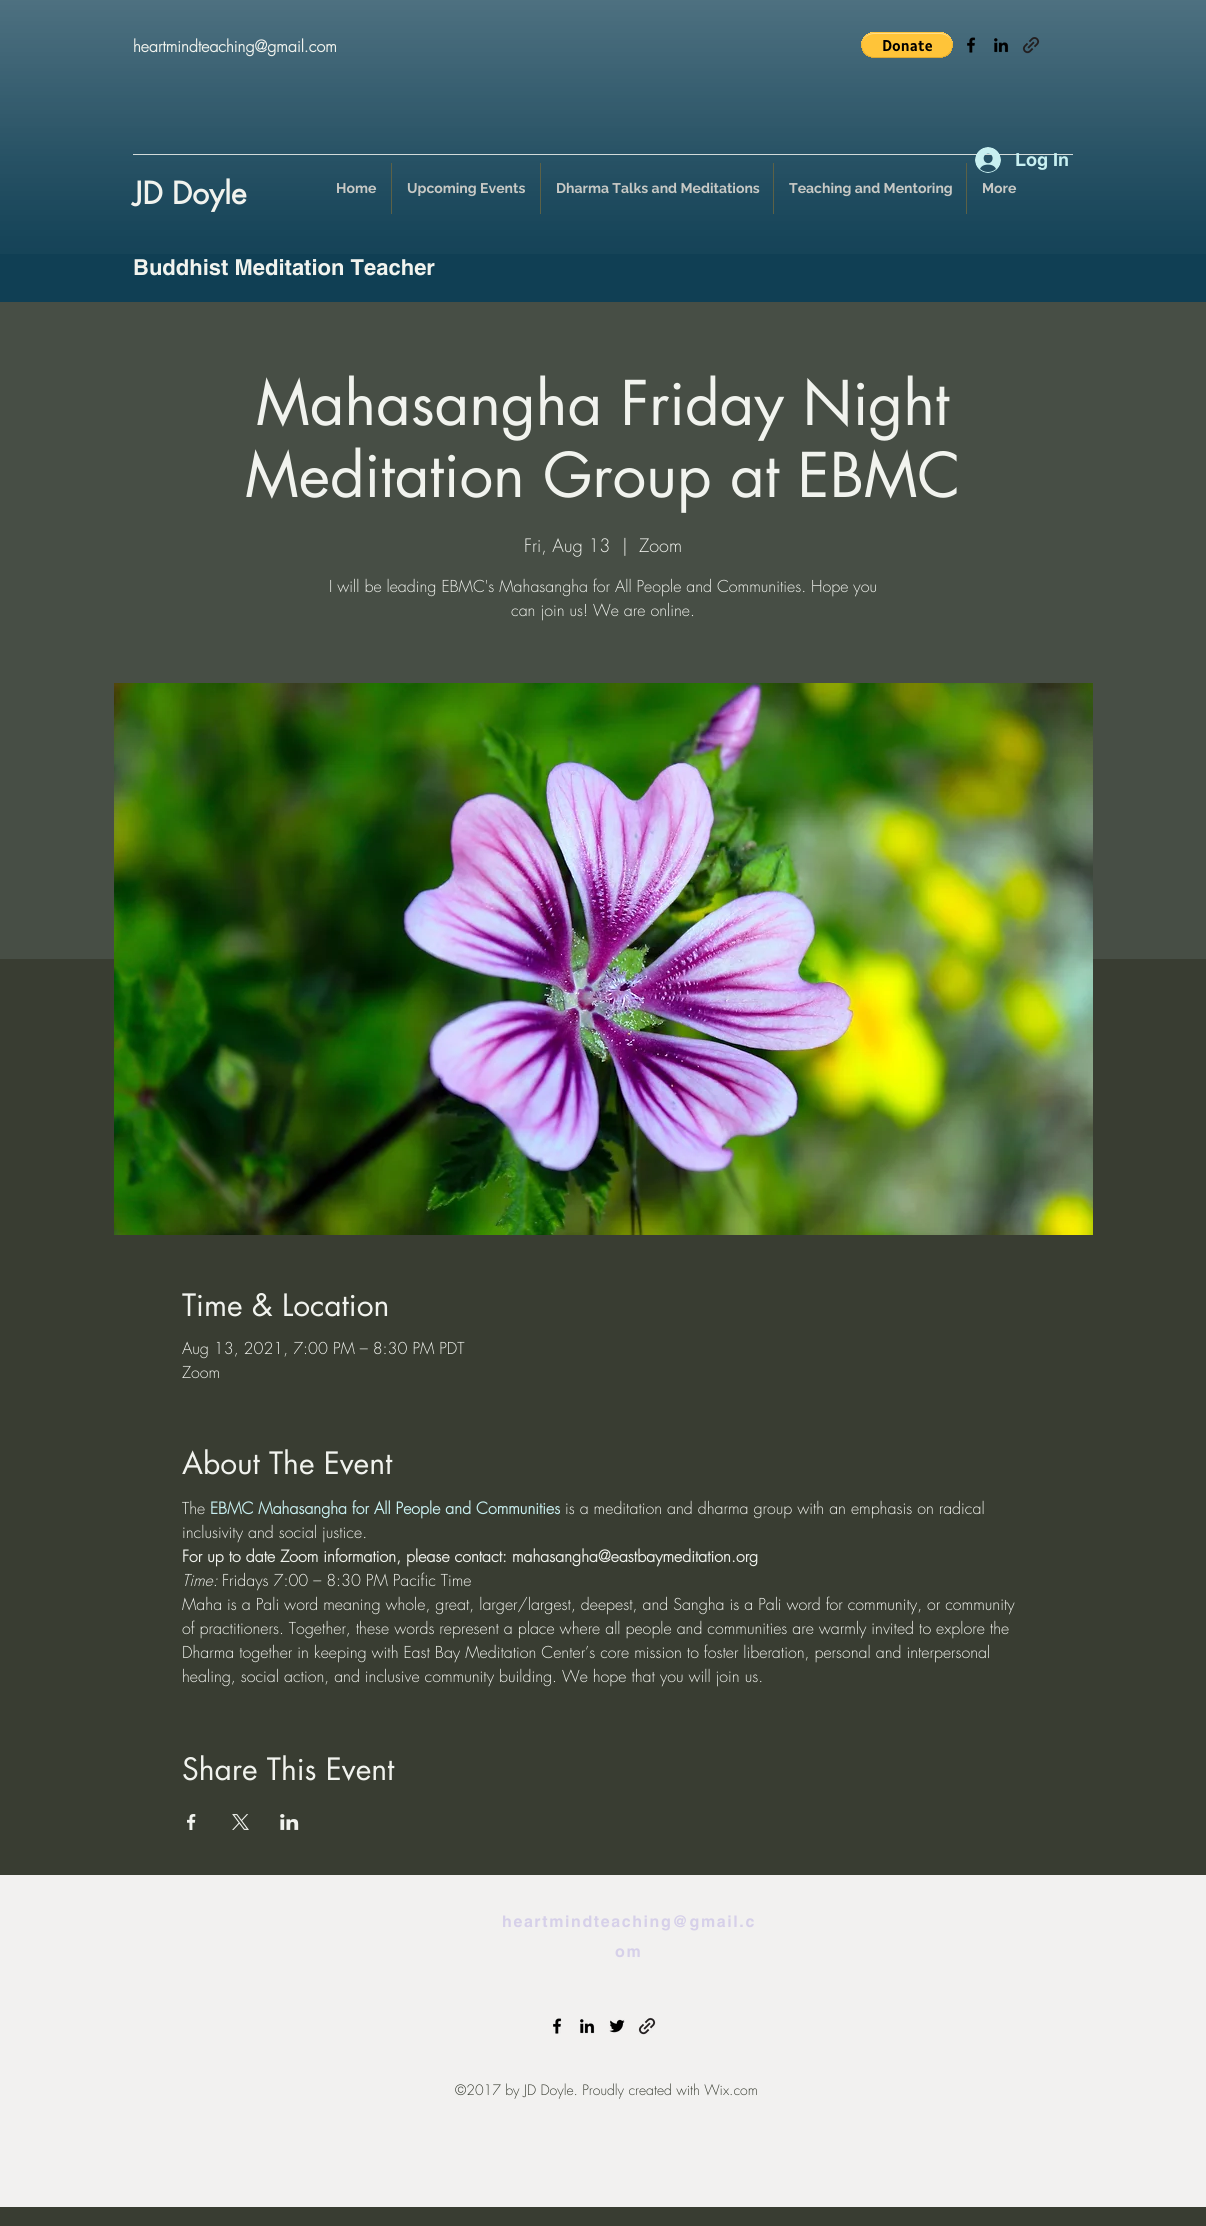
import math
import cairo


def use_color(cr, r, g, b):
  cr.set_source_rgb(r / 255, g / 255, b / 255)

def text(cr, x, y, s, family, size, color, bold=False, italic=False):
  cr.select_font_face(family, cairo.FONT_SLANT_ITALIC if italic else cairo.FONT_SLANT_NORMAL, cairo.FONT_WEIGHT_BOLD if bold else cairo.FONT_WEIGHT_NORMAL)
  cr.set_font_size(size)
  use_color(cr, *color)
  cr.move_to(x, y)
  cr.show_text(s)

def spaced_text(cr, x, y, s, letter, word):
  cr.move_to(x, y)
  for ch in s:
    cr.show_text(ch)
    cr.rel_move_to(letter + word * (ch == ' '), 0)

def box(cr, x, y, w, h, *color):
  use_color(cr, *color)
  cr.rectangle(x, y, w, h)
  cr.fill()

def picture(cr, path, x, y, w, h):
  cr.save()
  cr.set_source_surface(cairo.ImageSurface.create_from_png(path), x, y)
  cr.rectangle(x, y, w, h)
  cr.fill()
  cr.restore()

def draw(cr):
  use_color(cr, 57, 61, 50)
  cr.paint()
  box(cr, 0, 0, 1206, 302, 16, 63, 84)
  picture(cr, "img_01.png", 0, 0, 1206, 254)
  picture(cr, "img_02.png", 861, 32, 92, 26)
  picture(cr, "img_03.png", 967, 37, 9, 16)
  picture(cr, "img_04.png", 994, 38, 15, 15)
  picture(cr, "img_05.png", 1022, 37, 18, 17)
  box(cr, 133, 154, 940, 1, 211, 219, 218)
  picture(cr, "img_06.png", 975, 147, 26, 26)
  box(cr, 391, 163, 1, 51, 92, 97, 70)
  box(cr, 540, 163, 1, 51, 92, 97, 70)
  box(cr, 773, 163, 1, 51, 92, 97, 70)
  box(cr, 966, 163, 1, 51, 92, 97, 70)
  box(cr, 0, 302, 1206, 657, 71, 78, 69)
  picture(cr, "img_07.png", 114, 683, 979, 552)
  picture(cr, "img_08.png", 187, 1814, 9, 16)
  picture(cr, "img_09.png", 232, 1814, 17, 16)
  picture(cr, "img_10.png", 280, 1814, 19, 16)
  box(cr, 0, 1875, 1206, 332, 242, 241, 240)
  picture(cr, "img_11.png", 553, 2018, 9, 16)
  picture(cr, "img_12.png", 580, 2019, 15, 15)
  picture(cr, "img_13.png", 609, 2019, 16, 14)
  picture(cr, "img_14.png", 638, 2017, 18, 18)
  text(cr, 133, 52, "heartmindteaching@gmail.com", "futura", 16, (241, 243, 238), bold=True)
  text(cr, 1015, 166, "Log In", "helvetica", 18, (200, 240, 241), bold=True)
  text(cr, 133, 204, "JD Doyle", "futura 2", 30, (241, 243, 238), bold=True)
  text(cr, 336, 193, "Home", "Raleway", 14, (200, 201, 197), bold=True)
  text(cr, 407, 193, "Upcoming Events", "Raleway", 14, (200, 201, 197), bold=True)
  text(cr, 556, 193, "Dharma Talks and Meditations", "Raleway", 14, (200, 201, 197), bold=True)
  text(cr, 789, 193, "Teaching and Mentoring", "Raleway", 14, (200, 201, 197), bold=True)
  text(cr, 982, 193, "More", "Raleway", 14, (200, 201, 197), bold=True)
  text(cr, 133, 275, "Buddhist Meditation Teacher", "helvetica", 22, (241, 243, 238), bold=True)
  text(cr, 256, 425, "Mahasangha Friday Night", "futura", 60, (241, 243, 238))
  text(cr, 245, 497, "Meditation Group at EBMC", "futura", 60, (241, 243, 238))
  text(cr, 524, 552, "Fri, Aug 13", "futura Light", 18, (241, 243, 238))
  text(cr, 622, 552, "|", "futura Light", 18, (241, 243, 238))
  text(cr, 639, 552, "Zoom", "futura Light", 18, (241, 243, 238))
  text(cr, 329, 592, "I will be leading EBMC's Mahasangha for All People and Communities. Hope you", "futura Light", 16, (241, 243, 238))
  text(cr, 511, 616, "can join us! We are online.", "futura Light", 16, (241, 243, 238))
  text(cr, 182, 1316, "Time & Location", "futura", 30, (241, 243, 238))
  text(cr, 182, 1354, "Aug 13, 2021, 7:00 PM – 8:30 PM PDT", "futura Light", 16, (241, 243, 238))
  text(cr, 182, 1378, "Zoom", "futura Light", 16, (241, 243, 238))
  text(cr, 182, 1474, "About The Event", "futura", 30, (241, 243, 238))
  text(cr, 182, 1514, "The", "futura Light", 16, (241, 243, 238))
  text(cr, 210, 1514, "EBMC Mahasangha for All People and Communities", "futura", 16, (200, 240, 241), bold=True)
  text(cr, 565, 1514, "is a meditation and dharma group with an emphasis on radical", "futura Light", 16, (241, 243, 238))
  text(cr, 182, 1538, "inclusivity and social justice.", "futura Light", 16, (241, 243, 238))
  text(cr, 182, 1562, "For up to date Zoom information, please contact: mahasangha@eastbaymeditation.org", "futura", 16, (241, 243, 238), bold=True)
  text(cr, 182, 1586, "Time:", "futura Light", 16, (241, 243, 238), italic=True)
  text(cr, 222, 1586, "Fridays 7:00 – 8:30 PM Pacific Time", "futura Light", 16, (241, 243, 238))
  text(cr, 182, 1610, "Maha is a Pali word meaning whole, great, larger/largest, deepest, and Sangha is a Pali word for community, or community", "futura Light", 16, (241, 243, 238))
  text(cr, 182, 1634, "of practitioners. Together, these words represent a place where all people and communities are warmly invited to explore the", "futura Light", 16, (241, 243, 238))
  text(cr, 182, 1658, "Dharma together in keeping with East Bay Meditation Center’s core mission to foster liberation, personal and interpersonal", "futura Light", 16, (241, 243, 238))
  text(cr, 182, 1682, "healing, social action, and inclusive community building. We hope that you will join us.", "futura Light", 16, (241, 243, 238))
  text(cr, 182, 1780, "Share This Event", "futura", 30, (241, 243, 238))
  cr.select_font_face("helvetica", cairo.FONT_SLANT_NORMAL, cairo.FONT_WEIGHT_BOLD)
  cr.set_font_size(16)
  use_color(cr, 214, 208, 233)
  spaced_text(cr, 502, 1927, "heartmindteaching@gmail.c", 1.6, 0)
  spaced_text(cr, 615, 1957, "om", 1.6, 0)
  text(cr, 455, 2095, "©2017 by JD Doyle. Proudly created with Wix.com", "futura Light", 14, (57, 61, 50))


surface = cairo.ImageSurface(cairo.FORMAT_RGB24, 1206, 2226)
cr = cairo.Context(surface)
options = cairo.FontOptions()
options.set_hint_metrics(cairo.HINT_METRICS_OFF)
options.set_hint_style(cairo.HINT_STYLE_NONE)
cr.set_font_options(options)
cr.set_miter_limit(4)
draw(cr)
surface.write_to_png("out.png")
